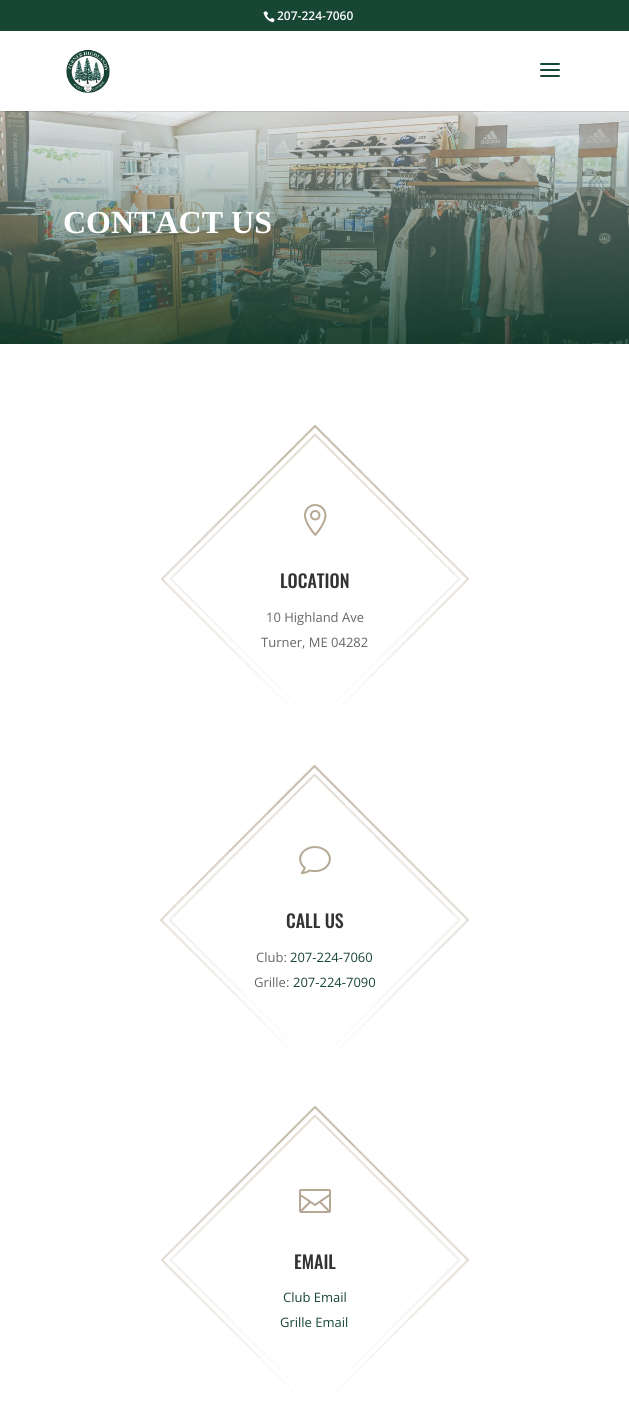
import math
import cairo


def use_color(cr, r, g, b):
  cr.set_source_rgb(r / 255, g / 255, b / 255)

def text(cr, x, y, s, family, size, color, bold=False, italic=False):
  cr.select_font_face(family, cairo.FONT_SLANT_ITALIC if italic else cairo.FONT_SLANT_NORMAL, cairo.FONT_WEIGHT_BOLD if bold else cairo.FONT_WEIGHT_NORMAL)
  cr.set_font_size(size)
  use_color(cr, *color)
  cr.move_to(x, y)
  cr.show_text(s)

def box(cr, x, y, w, h, *color):
  use_color(cr, *color)
  cr.rectangle(x, y, w, h)
  cr.fill()

def picture(cr, path, x, y, w, h):
  cr.save()
  cr.set_source_surface(cairo.ImageSurface.create_from_png(path), x, y)
  cr.rectangle(x, y, w, h)
  cr.fill()
  cr.restore()

def draw(cr):
  use_color(cr, 255, 255, 255)
  cr.paint()
  box(cr, 0, 0, 629, 31, 23, 70, 52)
  picture(cr, "img_01.png", 263, 11, 12, 12)
  picture(cr, "img_04.png", 0, 111, 629, 233)
  cr.set_source_rgba(0, 0, 0, 0.1)
  cr.rectangle(0, 111, 629, 1)
  cr.fill()
  picture(cr, "img_02.png", 66, 49, 44, 44)
  picture(cr, "img_03.png", 540, 63, 20, 14)
  picture(cr, "img_05.png", 161, 425, 308, 285)
  picture(cr, "img_06.png", 304, 504, 23, 32)
  picture(cr, "img_07.png", 160, 765, 309, 284)
  picture(cr, "img_08.png", 299, 846, 32, 28)
  picture(cr, "img_09.png", 161, 1106, 308, 285)
  picture(cr, "img_10.png", 299, 1189, 32, 24)
  text(cr, 277, 20, "207-224-7060", "Open Sans SemiBold", 12, (255, 255, 255))
  text(cr, 63, 233, "CONTACT US", "Liberation Serif", 32, (255, 255, 255), bold=True)
  text(cr, 280, 588, "LOCATION", "Oswald Medium", 18, (51, 51, 51))
  text(cr, 266, 622, "10 Highland Ave", "Open Sans", 13, (102, 102, 102))
  text(cr, 261, 647, "Turner, ME 04282", "Open Sans", 13, (102, 102, 102))
  text(cr, 286, 928, "CALL US", "Oswald Medium", 18, (51, 51, 51))
  text(cr, 256, 962, "Club:", "Open Sans", 13, (102, 102, 102))
  text(cr, 290, 962, "207-224-7060", "Open Sans", 13, (23, 70, 52))
  text(cr, 254, 987, "Grille:", "Open Sans", 13, (102, 102, 102))
  text(cr, 293, 987, "207-224-7090", "Open Sans", 13, (23, 70, 52))
  text(cr, 294, 1269, "EMAIL", "Oswald Medium", 18, (51, 51, 51))
  text(cr, 283, 1302, "Club Email", "Open Sans", 13, (23, 70, 52))
  text(cr, 280, 1327, "Grille Email", "Open Sans", 13, (23, 70, 52))


surface = cairo.ImageSurface(cairo.FORMAT_RGB24, 629, 1406)
cr = cairo.Context(surface)
options = cairo.FontOptions()
options.set_hint_metrics(cairo.HINT_METRICS_OFF)
options.set_hint_style(cairo.HINT_STYLE_NONE)
cr.set_font_options(options)
cr.set_miter_limit(4)
draw(cr)
surface.write_to_png("out.png")
